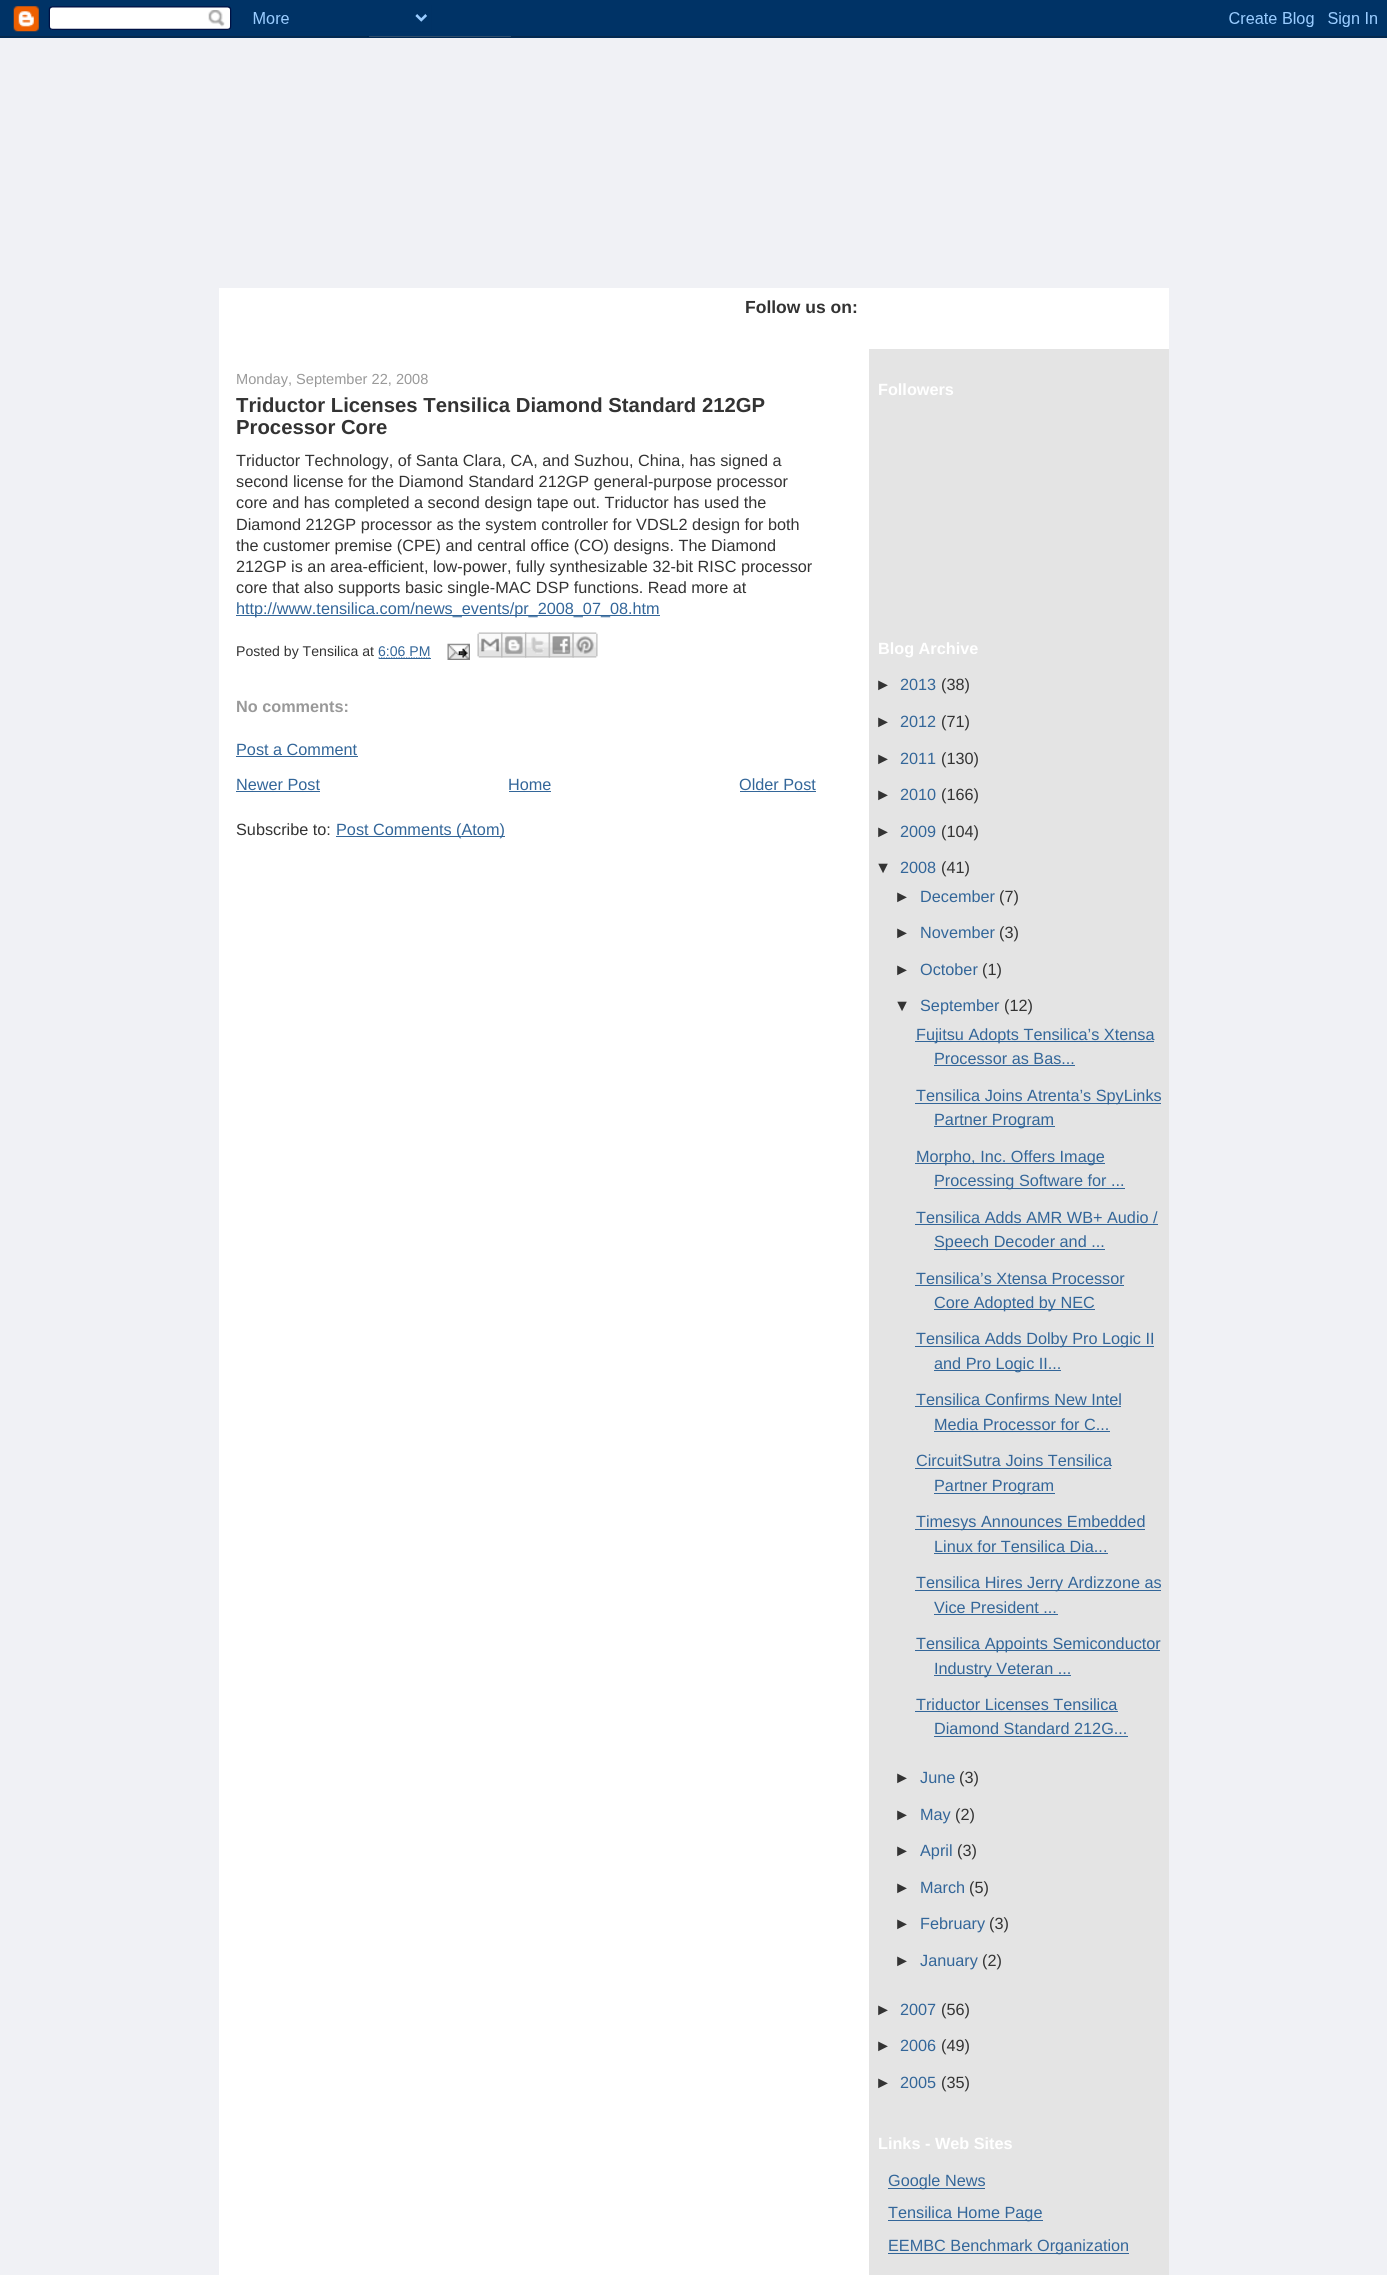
import math
import cairo


def use_color(cr, r, g, b):
  cr.set_source_rgb(r / 255, g / 255, b / 255)

def text(cr, x, y, s, family, size, color, bold=False, italic=False):
  cr.select_font_face(family, cairo.FONT_SLANT_ITALIC if italic else cairo.FONT_SLANT_NORMAL, cairo.FONT_WEIGHT_BOLD if bold else cairo.FONT_WEIGHT_NORMAL)
  cr.set_font_size(size)
  use_color(cr, *color)
  cr.move_to(x, y)
  cr.show_text(s)

def box(cr, x, y, w, h, *color):
  use_color(cr, *color)
  cr.rectangle(x, y, w, h)
  cr.fill()

def picture(cr, path, x, y, w, h):
  cr.save()
  cr.set_source_surface(cairo.ImageSurface.create_from_png(path), x, y)
  cr.rectangle(x, y, w, h)
  cr.fill()
  cr.restore()

def draw(cr):
  use_color(cr, 255, 255, 255)
  cr.paint()
  picture(cr, "img_01.png", 0, 0, 1387, 38)
  box(cr, 0, 38, 1387, 2237, 240, 241, 245)
  box(cr, 219, 288, 950, 1987, 255, 255, 255)
  box(cr, 236, 615, 424, 1, 51, 102, 153)
  cr.new_path()
  cr.move_to(378.5, 658)
  cr.line_to(431, 658)
  cr.set_line_width(1.2)
  cr.set_dash([1.25, 1.25])
  cr.stroke()
  box(cr, 379, 658, 52, 1, 51, 102, 153)
  picture(cr, "img_02.png", 447, 643, 23, 17)
  picture(cr, "img_03.png", 477, 632, 26, 26)
  picture(cr, "img_04.png", 501, 632, 26, 26)
  picture(cr, "img_05.png", 525, 632, 25, 26)
  picture(cr, "img_06.png", 548, 632, 26, 26)
  picture(cr, "img_07.png", 572, 632, 26, 26)
  box(cr, 236, 756, 122, 1, 51, 102, 153)
  box(cr, 236, 791, 84, 1, 51, 102, 153)
  box(cr, 509, 791, 42, 1, 51, 102, 153)
  box(cr, 740, 791, 76, 1, 51, 102, 153)
  box(cr, 336, 836, 169, 1, 51, 102, 153)
  box(cr, 869, 349, 300, 1926, 228, 228, 228)
  box(cr, 915, 1041, 239, 1, 51, 102, 153)
  box(cr, 934, 1065, 141, 1, 51, 102, 153)
  box(cr, 915, 1103, 246, 1, 51, 102, 153)
  box(cr, 934, 1126, 121, 1, 51, 102, 153)
  box(cr, 915, 1163, 190, 1, 51, 102, 153)
  box(cr, 934, 1188, 191, 1, 51, 102, 153)
  box(cr, 915, 1224, 243, 1, 51, 102, 153)
  box(cr, 934, 1249, 171, 1, 51, 102, 153)
  box(cr, 915, 1285, 209, 1, 51, 102, 153)
  box(cr, 934, 1309, 161, 1, 51, 102, 153)
  box(cr, 915, 1346, 239, 1, 51, 102, 153)
  box(cr, 934, 1370, 127, 1, 51, 102, 153)
  box(cr, 915, 1406, 206, 1, 51, 102, 153)
  box(cr, 934, 1431, 176, 1, 51, 102, 153)
  box(cr, 915, 1468, 196, 1, 51, 102, 153)
  box(cr, 934, 1493, 121, 1, 51, 102, 153)
  box(cr, 915, 1529, 230, 1, 51, 102, 153)
  box(cr, 934, 1553, 174, 1, 51, 102, 153)
  box(cr, 915, 1590, 246, 1, 51, 102, 153)
  box(cr, 934, 1614, 124, 1, 51, 102, 153)
  box(cr, 915, 1650, 245, 1, 51, 102, 153)
  box(cr, 934, 1675, 137, 1, 51, 102, 153)
  box(cr, 915, 1711, 203, 1, 51, 102, 153)
  box(cr, 934, 1736, 194, 1, 51, 102, 153)
  box(cr, 888, 2188, 97, 1, 51, 102, 153)
  box(cr, 888, 2220, 155, 1, 51, 102, 153)
  box(cr, 888, 2253, 241, 1, 51, 102, 153)
  text(cr, 745, 313, "Follow us on:", "Liberation Sans", 17.5, (51, 51, 51), bold=True)
  text(cr, 236, 384, "Monday, September 22, 2008", "Liberation Sans", 14.6, (153, 153, 153))
  text(cr, 236, 412, "Triductor Licenses Tensilica Diamond Standard 212GP", "Liberation Sans", 20.3, (51, 51, 51), bold=True)
  text(cr, 236, 434, "Processor Core", "Liberation Sans", 20.3, (51, 51, 51), bold=True)
  text(cr, 236, 466, "Triductor Technology, of Santa Clara, CA, and Suzhou, China, has signed a", "Liberation Sans", 16.25, (51, 51, 51))
  text(cr, 236, 487, "second license for the Diamond Standard 212GP general-purpose processor", "Liberation Sans", 16.25, (51, 51, 51))
  text(cr, 236, 508, "core and has completed a second design tape out. Triductor has used the", "Liberation Sans", 16.25, (51, 51, 51))
  text(cr, 236, 530, "Diamond 212GP processor as the system controller for VDSL2 design for both", "Liberation Sans", 16.25, (51, 51, 51))
  text(cr, 236, 551, "the customer premise (CPE) and central office (CO) designs. The Diamond", "Liberation Sans", 16.25, (51, 51, 51))
  text(cr, 236, 572, "212GP is an area-efficient, low-power, fully synthesizable 32-bit RISC processor", "Liberation Sans", 16.25, (51, 51, 51))
  text(cr, 236, 593, "core that also supports basic single-MAC DSP functions. Read more at", "Liberation Sans", 16.25, (51, 51, 51))
  text(cr, 236, 614, "http://www.tensilica.com/news_events/pr_2008_07_08.htm", "Liberation Sans", 16.25, (51, 102, 153))
  text(cr, 236, 656, "Posted by Tensilica at", "Liberation Sans", 14.1, (51, 51, 51))
  text(cr, 378, 656, "6:06 PM", "Liberation Sans", 14.1, (51, 102, 153))
  text(cr, 236, 712, "No comments:", "Liberation Sans", 16.25, (153, 153, 153), bold=True)
  text(cr, 236, 755, "Post a Comment", "Liberation Sans", 16.25, (51, 102, 153))
  text(cr, 236, 790, "Newer Post", "Liberation Sans", 16.25, (51, 102, 153))
  text(cr, 508, 790, "Home", "Liberation Sans", 16.25, (51, 102, 153))
  text(cr, 739, 790, "Older Post", "Liberation Sans", 16.25, (51, 102, 153))
  text(cr, 236, 835, "Subscribe to:", "Liberation Sans", 16.25, (51, 51, 51))
  text(cr, 336, 835, "Post Comments (Atom)", "Liberation Sans", 16.25, (51, 102, 153))
  text(cr, 878, 395, "Followers", "Liberation Sans", 16.25, (255, 255, 255), bold=True)
  text(cr, 878, 654, "Blog Archive", "Liberation Sans", 16.25, (255, 255, 255), bold=True)
  text(cr, 875, 690, "►", "Liberation Sans", 16.25, (51, 51, 51))
  text(cr, 900, 690, "2013", "Liberation Sans", 16.25, (51, 102, 153))
  text(cr, 941, 690, "(38)", "Liberation Sans", 16.25, (51, 51, 51))
  text(cr, 875, 727, "►", "Liberation Sans", 16.25, (51, 51, 51))
  text(cr, 900, 727, "2012", "Liberation Sans", 16.25, (51, 102, 153))
  text(cr, 941, 727, "(71)", "Liberation Sans", 16.25, (51, 51, 51))
  text(cr, 875, 764, "►", "Liberation Sans", 16.25, (51, 51, 51))
  text(cr, 900, 764, "2011", "Liberation Sans", 16.25, (51, 102, 153))
  text(cr, 941, 764, "(130)", "Liberation Sans", 16.25, (51, 51, 51))
  text(cr, 875, 800, "►", "Liberation Sans", 16.25, (51, 51, 51))
  text(cr, 900, 800, "2010", "Liberation Sans", 16.25, (51, 102, 153))
  text(cr, 941, 800, "(166)", "Liberation Sans", 16.25, (51, 51, 51))
  text(cr, 875, 837, "►", "Liberation Sans", 16.25, (51, 51, 51))
  text(cr, 900, 837, "2009", "Liberation Sans", 16.25, (51, 102, 153))
  text(cr, 941, 837, "(104)", "Liberation Sans", 16.25, (51, 51, 51))
  text(cr, 875, 873, "▼", "Liberation Sans", 16.25, (51, 51, 51))
  text(cr, 900, 873, "2008", "Liberation Sans", 16.25, (51, 102, 153))
  text(cr, 941, 873, "(41)", "Liberation Sans", 16.25, (51, 51, 51))
  text(cr, 894, 902, "►", "Liberation Sans", 16.25, (51, 51, 51))
  text(cr, 920, 902, "December", "Liberation Sans", 16.25, (51, 102, 153))
  text(cr, 999, 902, "(7)", "Liberation Sans", 16.25, (51, 51, 51))
  text(cr, 894, 938, "►", "Liberation Sans", 16.25, (51, 51, 51))
  text(cr, 920, 938, "November", "Liberation Sans", 16.25, (51, 102, 153))
  text(cr, 999, 938, "(3)", "Liberation Sans", 16.25, (51, 51, 51))
  text(cr, 894, 975, "►", "Liberation Sans", 16.25, (51, 51, 51))
  text(cr, 920, 975, "October", "Liberation Sans", 16.25, (51, 102, 153))
  text(cr, 982, 975, "(1)", "Liberation Sans", 16.25, (51, 51, 51))
  text(cr, 894, 1011, "▼", "Liberation Sans", 16.25, (51, 51, 51))
  text(cr, 920, 1011, "September", "Liberation Sans", 16.25, (51, 102, 153))
  text(cr, 1004, 1011, "(12)", "Liberation Sans", 16.25, (51, 51, 51))
  text(cr, 916, 1040, "Fujitsu Adopts Tensilica’s Xtensa", "Liberation Sans", 16.25, (51, 102, 153))
  text(cr, 934, 1064, "Processor as Bas...", "Liberation Sans", 16.25, (51, 102, 153))
  text(cr, 916, 1101, "Tensilica Joins Atrenta’s SpyLinks", "Liberation Sans", 16.25, (51, 102, 153))
  text(cr, 934, 1125, "Partner Program", "Liberation Sans", 16.25, (51, 102, 153))
  text(cr, 916, 1162, "Morpho, Inc. Offers Image", "Liberation Sans", 16.25, (51, 102, 153))
  text(cr, 934, 1186, "Processing Software for ...", "Liberation Sans", 16.25, (51, 102, 153))
  text(cr, 916, 1223, "Tensilica Adds AMR WB+ Audio /", "Liberation Sans", 16.25, (51, 102, 153))
  text(cr, 934, 1247, "Speech Decoder and ...", "Liberation Sans", 16.25, (51, 102, 153))
  text(cr, 916, 1284, "Tensilica’s Xtensa Processor", "Liberation Sans", 16.25, (51, 102, 153))
  text(cr, 934, 1308, "Core Adopted by NEC", "Liberation Sans", 16.25, (51, 102, 153))
  text(cr, 916, 1344, "Tensilica Adds Dolby Pro Logic II", "Liberation Sans", 16.25, (51, 102, 153))
  text(cr, 934, 1369, "and Pro Logic II...", "Liberation Sans", 16.25, (51, 102, 153))
  text(cr, 916, 1405, "Tensilica Confirms New Intel", "Liberation Sans", 16.25, (51, 102, 153))
  text(cr, 934, 1430, "Media Processor for C...", "Liberation Sans", 16.25, (51, 102, 153))
  text(cr, 916, 1466, "CircuitSutra Joins Tensilica", "Liberation Sans", 16.25, (51, 102, 153))
  text(cr, 934, 1491, "Partner Program", "Liberation Sans", 16.25, (51, 102, 153))
  text(cr, 916, 1527, "Timesys Announces Embedded", "Liberation Sans", 16.25, (51, 102, 153))
  text(cr, 934, 1552, "Linux for Tensilica Dia...", "Liberation Sans", 16.25, (51, 102, 153))
  text(cr, 916, 1588, "Tensilica Hires Jerry Ardizzone as", "Liberation Sans", 16.25, (51, 102, 153))
  text(cr, 934, 1613, "Vice President ...", "Liberation Sans", 16.25, (51, 102, 153))
  text(cr, 916, 1649, "Tensilica Appoints Semiconductor", "Liberation Sans", 16.25, (51, 102, 153))
  text(cr, 934, 1674, "Industry Veteran ...", "Liberation Sans", 16.25, (51, 102, 153))
  text(cr, 916, 1710, "Triductor Licenses Tensilica", "Liberation Sans", 16.25, (51, 102, 153))
  text(cr, 934, 1734, "Diamond Standard 212G...", "Liberation Sans", 16.25, (51, 102, 153))
  text(cr, 894, 1783, "►", "Liberation Sans", 16.25, (51, 51, 51))
  text(cr, 920, 1783, "June", "Liberation Sans", 16.25, (51, 102, 153))
  text(cr, 959, 1783, "(3)", "Liberation Sans", 16.25, (51, 51, 51))
  text(cr, 894, 1820, "►", "Liberation Sans", 16.25, (51, 51, 51))
  text(cr, 920, 1820, "May", "Liberation Sans", 16.25, (51, 102, 153))
  text(cr, 955, 1820, "(2)", "Liberation Sans", 16.25, (51, 51, 51))
  text(cr, 894, 1856, "►", "Liberation Sans", 16.25, (51, 51, 51))
  text(cr, 920, 1856, "April", "Liberation Sans", 16.25, (51, 102, 153))
  text(cr, 957, 1856, "(3)", "Liberation Sans", 16.25, (51, 51, 51))
  text(cr, 894, 1893, "►", "Liberation Sans", 16.25, (51, 51, 51))
  text(cr, 920, 1893, "March", "Liberation Sans", 16.25, (51, 102, 153))
  text(cr, 969, 1893, "(5)", "Liberation Sans", 16.25, (51, 51, 51))
  text(cr, 894, 1929, "►", "Liberation Sans", 16.25, (51, 51, 51))
  text(cr, 920, 1929, "February", "Liberation Sans", 16.25, (51, 102, 153))
  text(cr, 989, 1929, "(3)", "Liberation Sans", 16.25, (51, 51, 51))
  text(cr, 894, 1966, "►", "Liberation Sans", 16.25, (51, 51, 51))
  text(cr, 920, 1966, "January", "Liberation Sans", 16.25, (51, 102, 153))
  text(cr, 982, 1966, "(2)", "Liberation Sans", 16.25, (51, 51, 51))
  text(cr, 875, 2015, "►", "Liberation Sans", 16.25, (51, 51, 51))
  text(cr, 900, 2015, "2007", "Liberation Sans", 16.25, (51, 102, 153))
  text(cr, 941, 2015, "(56)", "Liberation Sans", 16.25, (51, 51, 51))
  text(cr, 875, 2051, "►", "Liberation Sans", 16.25, (51, 51, 51))
  text(cr, 900, 2051, "2006", "Liberation Sans", 16.25, (51, 102, 153))
  text(cr, 941, 2051, "(49)", "Liberation Sans", 16.25, (51, 51, 51))
  text(cr, 875, 2088, "►", "Liberation Sans", 16.25, (51, 51, 51))
  text(cr, 900, 2088, "2005", "Liberation Sans", 16.25, (51, 102, 153))
  text(cr, 941, 2088, "(35)", "Liberation Sans", 16.25, (51, 51, 51))
  text(cr, 878, 2149, "Links - Web Sites", "Liberation Sans", 16.25, (255, 255, 255), bold=True)
  text(cr, 888, 2186, "Google News", "Liberation Sans", 16.25, (51, 102, 153))
  text(cr, 888, 2218, "Tensilica Home Page", "Liberation Sans", 16.25, (51, 102, 153))
  text(cr, 888, 2251, "EEMBC Benchmark Organization", "Liberation Sans", 16.25, (51, 102, 153))


surface = cairo.ImageSurface(cairo.FORMAT_RGB24, 1387, 2275)
cr = cairo.Context(surface)
options = cairo.FontOptions()
options.set_hint_metrics(cairo.HINT_METRICS_OFF)
options.set_hint_style(cairo.HINT_STYLE_NONE)
cr.set_font_options(options)
cr.set_miter_limit(4)
draw(cr)
surface.write_to_png("out.png")
